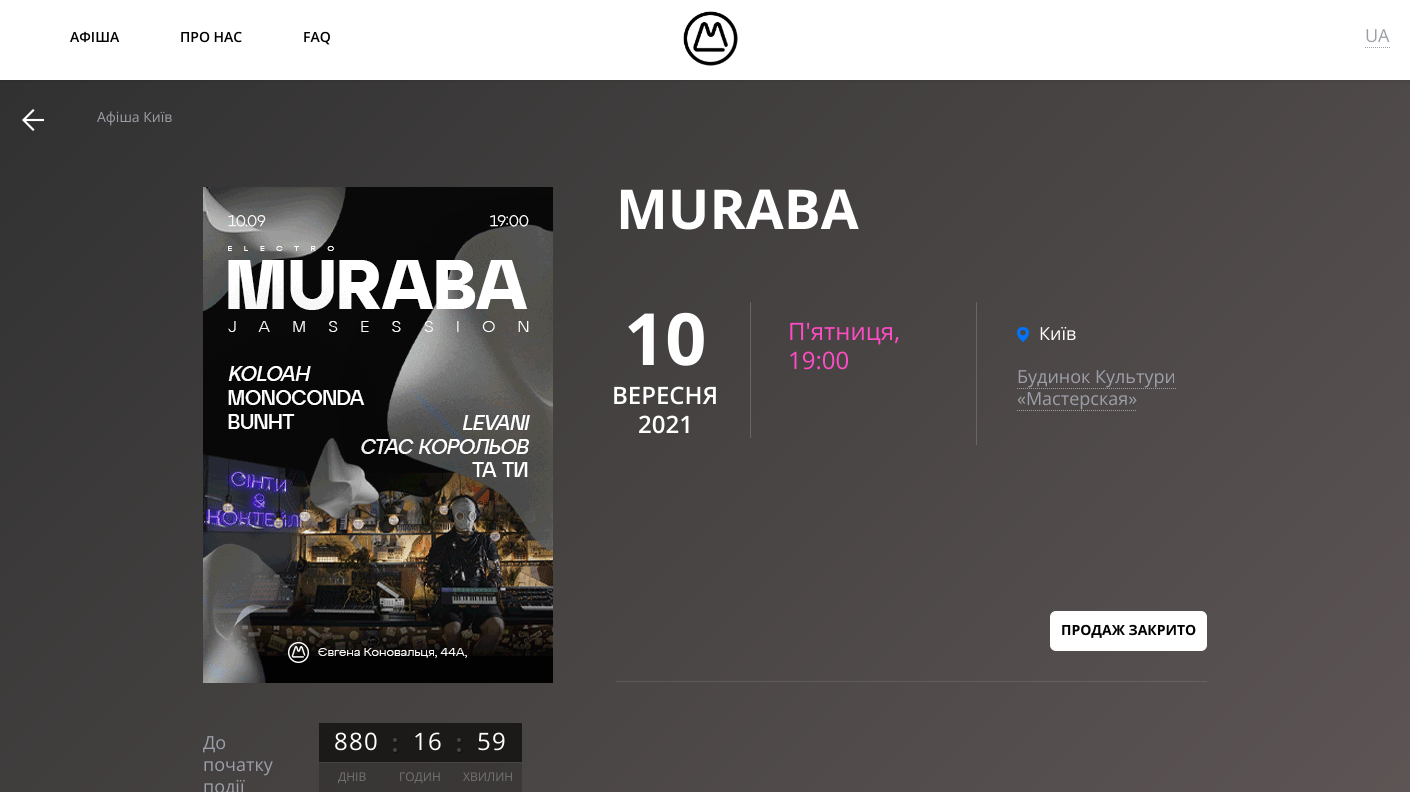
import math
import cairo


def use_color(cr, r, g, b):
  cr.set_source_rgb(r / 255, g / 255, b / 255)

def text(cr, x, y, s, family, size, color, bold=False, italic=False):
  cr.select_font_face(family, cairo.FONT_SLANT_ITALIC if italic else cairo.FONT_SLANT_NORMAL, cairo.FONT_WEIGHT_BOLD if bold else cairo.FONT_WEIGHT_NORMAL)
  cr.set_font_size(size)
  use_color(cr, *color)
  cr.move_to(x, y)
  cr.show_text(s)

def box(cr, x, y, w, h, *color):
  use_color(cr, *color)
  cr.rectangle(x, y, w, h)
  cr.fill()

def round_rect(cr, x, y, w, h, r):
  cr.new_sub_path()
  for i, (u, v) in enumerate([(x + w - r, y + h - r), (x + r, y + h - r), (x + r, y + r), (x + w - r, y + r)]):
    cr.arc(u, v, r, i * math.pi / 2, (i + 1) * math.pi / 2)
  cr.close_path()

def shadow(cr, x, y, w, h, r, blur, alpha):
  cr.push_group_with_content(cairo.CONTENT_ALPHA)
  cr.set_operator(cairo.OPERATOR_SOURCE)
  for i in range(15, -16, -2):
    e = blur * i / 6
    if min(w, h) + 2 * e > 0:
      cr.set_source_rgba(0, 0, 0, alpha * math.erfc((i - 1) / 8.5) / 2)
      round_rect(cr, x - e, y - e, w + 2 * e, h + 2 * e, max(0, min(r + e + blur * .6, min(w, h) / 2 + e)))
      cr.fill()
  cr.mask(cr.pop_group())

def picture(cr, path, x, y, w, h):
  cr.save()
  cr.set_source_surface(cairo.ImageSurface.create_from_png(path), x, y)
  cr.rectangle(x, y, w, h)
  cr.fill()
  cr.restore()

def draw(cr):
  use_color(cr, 255, 255, 255)
  cr.paint()
  gradient = cairo.LinearGradient(144, -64, 1266, 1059)
  gradient.add_color_stop_rgba(0, 0.192, 0.192, 0.192, 1)
  gradient.add_color_stop_rgba(1, 0.376, 0.341, 0.341, 1)
  cr.set_source(gradient)
  cr.rectangle(0, 80, 1410, 712)
  cr.fill()
  use_color(cr, 0, 0, 0)
  shadow(cr, 2, 0, 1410, 80, 0, 2.5, 0.14)
  box(cr, 0, 0, 1410, 80, 255, 255, 255)
  picture(cr, "img_01.png", 683, 11, 55, 55)
  cr.new_path()
  cr.move_to(1365, 47.5)
  cr.line_to(1390, 47.5)
  use_color(cr, 157, 159, 168)
  cr.set_line_width(1)
  cr.set_dash([1, 1])
  cr.stroke()
  gradient = cairo.LinearGradient(144, -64, 1266, 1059)
  gradient.add_color_stop_rgba(0, 0.153, 0.153, 0.153, 1)
  gradient.add_color_stop_rgba(1, 0.302, 0.275, 0.275, 1)
  cr.set_source(gradient)
  cr.rectangle(319, 763, 203, 29)
  cr.fill()
  gradient = cairo.LinearGradient(144, -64, 1266, 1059)
  gradient.add_color_stop_rgba(0, 0.275, 0.275, 0.275, 1)
  gradient.add_color_stop_rgba(1, 0.439, 0.408, 0.408, 1)
  cr.set_source(gradient)
  cr.rectangle(616, 681, 591, 1)
  cr.fill()
  picture(cr, "img_02.png", 22, 109, 22, 22)
  box(cr, 750, 302, 1, 136, 106, 102, 102)
  box(cr, 976, 302, 1, 143, 106, 102, 102)
  picture(cr, "img_03.png", 1017, 327, 12, 15)
  cr.new_path()
  cr.move_to(1017, 388.5)
  cr.line_to(1176, 388.5)
  use_color(cr, 157, 159, 168)
  cr.stroke()
  cr.new_path()
  cr.move_to(1017, 410.5)
  cr.line_to(1137, 410.5)
  cr.stroke()
  use_color(cr, 255, 255, 255)
  round_rect(cr, 1050.5, 611.5, 156, 39, 5.5)
  cr.fill_preserve()
  cr.set_dash([])
  cr.stroke()
  picture(cr, "img_04.png", 203, 187, 350, 496)
  box(cr, 319, 723, 203, 39, 28, 25, 25)
  use_color(cr, 4, 4, 4)
  shadow(cr, 394, 739, 4, 4, 2, 0.5, 0.5)
  use_color(cr, 68, 68, 68)
  cr.arc(395, 740, 2, 0, 2 * math.pi)
  cr.fill()
  use_color(cr, 4, 4, 4)
  shadow(cr, 394, 749, 4, 4, 2, 0.5, 0.5)
  use_color(cr, 68, 68, 68)
  cr.arc(395, 750, 2, 0, 2 * math.pi)
  cr.fill()
  use_color(cr, 4, 4, 4)
  shadow(cr, 458, 739, 4, 4, 2, 0.5, 0.5)
  use_color(cr, 68, 68, 68)
  cr.arc(459, 740, 2, 0, 2 * math.pi)
  cr.fill()
  use_color(cr, 4, 4, 4)
  shadow(cr, 458, 749, 4, 4, 2, 0.5, 0.5)
  use_color(cr, 68, 68, 68)
  cr.arc(459, 750, 2, 0, 2 * math.pi)
  cr.fill()
  text(cr, 70, 42, "АФІША", "Open Sans SemiBold", 14, (0, 0, 0))
  text(cr, 180, 42, "ПРО НАС", "Open Sans SemiBold", 14, (0, 0, 0))
  text(cr, 303, 42, "FAQ", "Open Sans SemiBold", 14, (0, 0, 0))
  text(cr, 1365, 42, "UA", "Open Sans", 18, (157, 159, 168))
  text(cr, 97, 122, "Афіша Київ", "Open Sans", 14, (157, 159, 168))
  text(cr, 616, 229, "MURABA", "Open Sans", 55, (255, 255, 255), bold=True)
  text(cr, 624, 365, "10", "Open Sans", 72, (255, 255, 255), bold=True)
  text(cr, 612, 404, "ВЕРЕСНЯ", "Open Sans SemiBold", 24, (255, 255, 255))
  text(cr, 638, 433, "2021", "Open Sans SemiBold", 24, (255, 255, 255))
  text(cr, 788, 340, "П'ятниця,", "Open Sans", 24, (255, 76, 197))
  text(cr, 788, 369, "19:00", "Open Sans", 24, (255, 76, 197))
  text(cr, 1039, 340, "Київ", "Open Sans", 18, (255, 255, 255))
  text(cr, 1017, 383, "Будинок Культури", "Open Sans", 18, (157, 159, 168))
  text(cr, 1017, 405, "«Мастерская»", "Open Sans", 18, (157, 159, 168))
  text(cr, 1061, 635, "ПРОДАЖ ЗАКРИТО", "Open Sans", 14, (0, 0, 0), bold=True)
  text(cr, 203, 749, "До", "Open Sans", 18, (157, 159, 168))
  text(cr, 203, 771, "початку", "Open Sans", 18, (157, 159, 168))
  text(cr, 203, 793, "події", "Open Sans", 18, (157, 159, 168))
  text(cr, 334, 750, "8", "Open Sans", 24, (255, 255, 255))
  text(cr, 349, 750, "8", "Open Sans", 24, (255, 255, 255))
  text(cr, 364, 750, "0", "Open Sans", 24, (255, 255, 255))
  text(cr, 413, 750, "1", "Open Sans", 24, (255, 255, 255))
  text(cr, 428, 750, "6", "Open Sans", 24, (255, 255, 255))
  text(cr, 477, 750, "5", "Open Sans", 24, (255, 255, 255))
  text(cr, 492, 750, "9", "Open Sans", 24, (255, 255, 255))
  text(cr, 338, 781, "ДНІВ", "Open Sans", 12, (116, 114, 114))
  text(cr, 399, 781, "ГОДИН", "Open Sans", 12, (116, 114, 114))
  text(cr, 463, 781, "ХВИЛИН", "Open Sans", 12, (116, 114, 114))


surface = cairo.ImageSurface(cairo.FORMAT_RGB24, 1410, 792)
cr = cairo.Context(surface)
options = cairo.FontOptions()
options.set_hint_metrics(cairo.HINT_METRICS_OFF)
options.set_hint_style(cairo.HINT_STYLE_NONE)
cr.set_font_options(options)
cr.set_miter_limit(4)
draw(cr)
surface.write_to_png("out.png")
